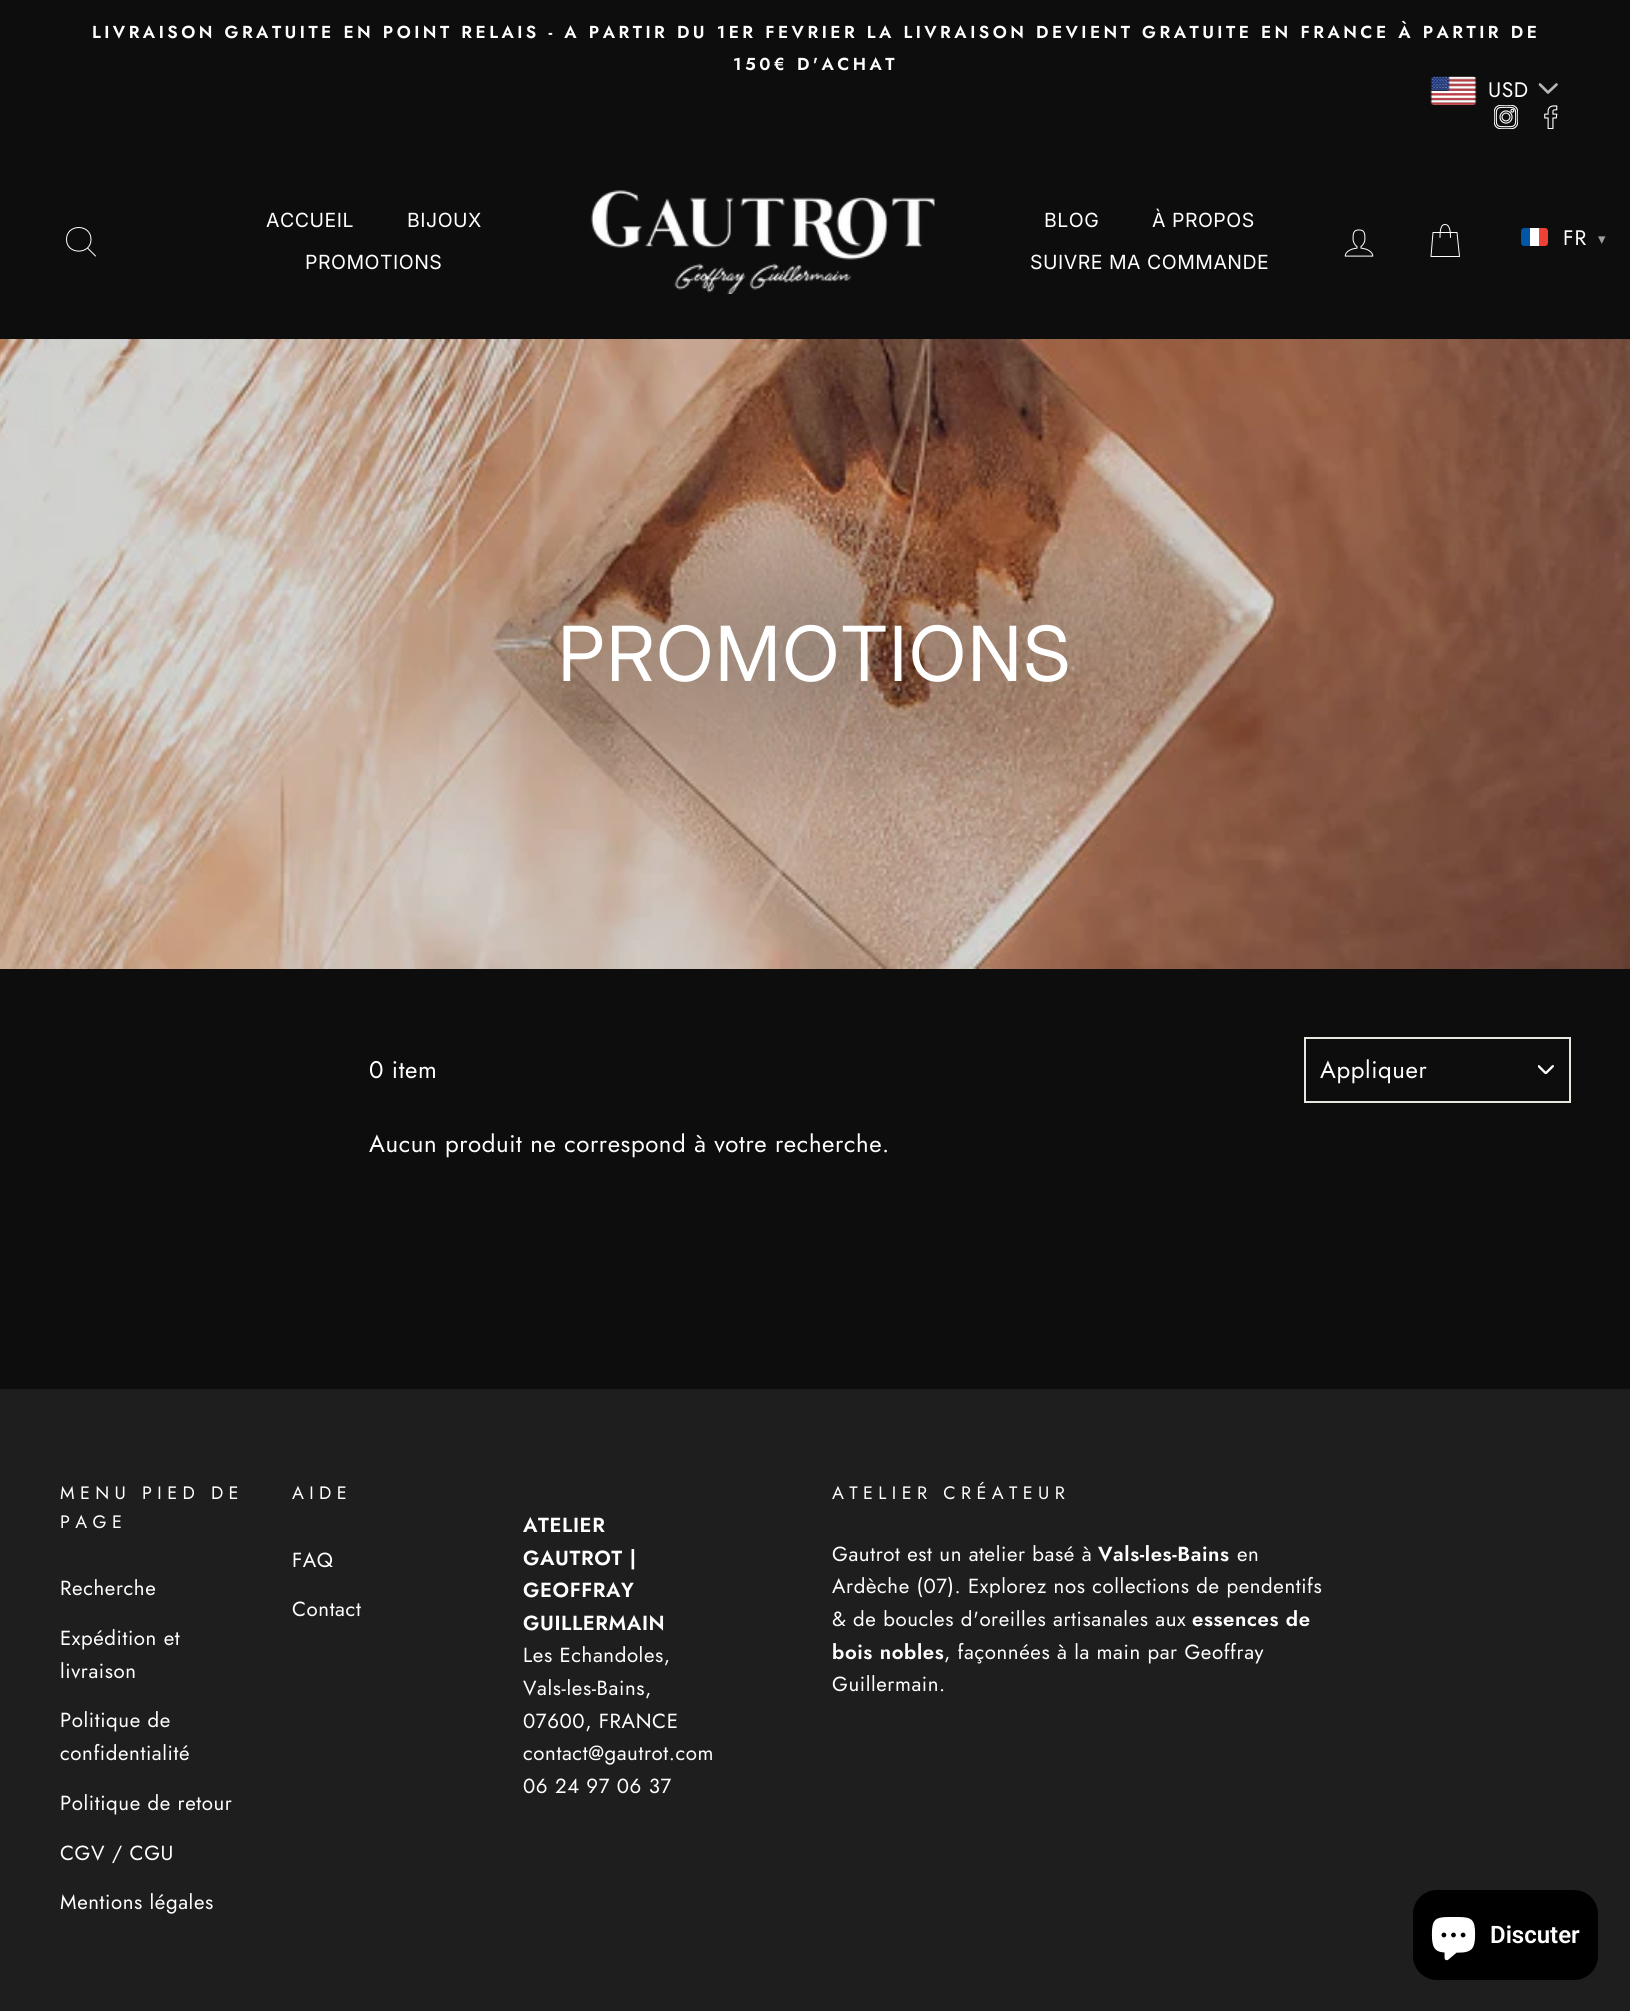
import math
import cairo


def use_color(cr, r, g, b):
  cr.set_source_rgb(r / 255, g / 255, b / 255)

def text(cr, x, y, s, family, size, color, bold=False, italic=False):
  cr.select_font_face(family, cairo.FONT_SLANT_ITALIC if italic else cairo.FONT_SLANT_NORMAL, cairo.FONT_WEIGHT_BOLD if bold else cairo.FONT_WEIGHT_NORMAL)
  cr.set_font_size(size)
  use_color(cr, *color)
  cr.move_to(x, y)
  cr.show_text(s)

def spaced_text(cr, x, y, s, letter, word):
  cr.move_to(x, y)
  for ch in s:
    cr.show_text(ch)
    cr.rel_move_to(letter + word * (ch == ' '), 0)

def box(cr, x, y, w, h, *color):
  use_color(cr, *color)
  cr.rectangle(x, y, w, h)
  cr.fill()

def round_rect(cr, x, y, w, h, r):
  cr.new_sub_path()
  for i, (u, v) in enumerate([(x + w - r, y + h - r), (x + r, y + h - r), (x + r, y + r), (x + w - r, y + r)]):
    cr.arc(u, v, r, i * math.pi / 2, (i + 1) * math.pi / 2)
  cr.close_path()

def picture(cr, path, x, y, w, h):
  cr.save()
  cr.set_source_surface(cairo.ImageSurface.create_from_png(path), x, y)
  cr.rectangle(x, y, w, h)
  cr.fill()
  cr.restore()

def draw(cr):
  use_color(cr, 13, 13, 13)
  cr.paint()
  picture(cr, "img_01.png", 1494, 105, 24, 24)
  picture(cr, "img_02.png", 1544, 105, 14, 24)
  cr.new_path()
  cr.move_to(91, 239.5)
  cr.curve_to(91, 255, 66.5, 255, 66.5, 239.5)
  cr.curve_to(66.5, 223.5, 91, 223.5, 91, 239.5)
  cr.close_path()
  cr.move_to(95.5, 256)
  cr.line_to(87.5, 248)
  use_color(cr, 255, 255, 255)
  cr.set_line_width(1)
  cr.set_line_cap(cairo.LINE_CAP_ROUND)
  cr.set_line_join(cairo.LINE_JOIN_ROUND)
  cr.stroke()
  picture(cr, "img_03.png", 590, 190, 345, 104)
  picture(cr, "img_04.png", 1344, 229, 30, 28)
  cr.new_path()
  cr.move_to(1440, 237.5)
  cr.curve_to(1440, 227, 1442, 224.5, 1445, 224.5)
  cr.curve_to(1448, 224.5, 1450.5, 227, 1450.5, 237.5)
  cr.move_to(1433, 232.5)
  cr.line_to(1457, 232.5)
  cr.line_to(1459.5, 256.5)
  cr.line_to(1431, 256.5)
  cr.close_path()
  cr.stroke()
  use_color(cr, 0, 85, 164)
  cr.new_path()
  cr.move_to(1524, 228)
  cr.line_to(1530, 228)
  cr.line_to(1530, 246)
  cr.line_to(1524, 246)
  cr.curve_to(1522.5, 246, 1521, 244.5, 1521, 243)
  cr.line_to(1521, 231)
  cr.curve_to(1521, 229.5, 1522.5, 228, 1524, 228)
  cr.close_path()
  cr.fill()
  box(cr, 1530, 228, 9, 18, 255, 255, 255)
  use_color(cr, 239, 65, 53)
  cr.new_path()
  cr.move_to(1539, 228)
  cr.line_to(1545, 228)
  cr.curve_to(1546.5, 228, 1548, 229.5, 1548, 231)
  cr.line_to(1548, 243)
  cr.curve_to(1548, 244.5, 1546.5, 246, 1545, 246)
  cr.line_to(1539, 246)
  cr.close_path()
  cr.fill()
  picture(cr, "img_05.png", 0, 339, 1630, 630)
  picture(cr, "img_06.png", 1538, 1065, 16, 9)
  cr.rectangle(1305, 1038, 265, 64)
  use_color(cr, 232, 232, 225)
  cr.set_line_width(2)
  cr.set_line_cap(cairo.LINE_CAP_BUTT)
  cr.set_line_join(cairo.LINE_JOIN_MITER)
  cr.stroke()
  box(cr, 0, 1389, 1630, 622, 30, 30, 30)
  picture(cr, "img_07.png", 1430, 76, 47, 29)
  cr.new_path()
  cr.move_to(1540, 84.5)
  cr.line_to(1548, 92.5)
  cr.line_to(1556.5, 84.5)
  use_color(cr, 183, 183, 183)
  cr.set_line_width(2.7)
  cr.set_line_cap(cairo.LINE_CAP_ROUND)
  cr.set_line_join(cairo.LINE_JOIN_ROUND)
  cr.stroke()
  use_color(cr, 0, 0, 0)
  round_rect(cr, 1413, 1890, 185, 90, 24)
  cr.fill()
  picture(cr, "img_08.png", 1431, 1917, 45, 44)
  cr.select_font_face("Jost SemiBold")
  cr.set_font_size(17.35)
  use_color(cr, 255, 255, 255)
  spaced_text(cr, 92, 38, "LIVRAISON GRATUITE EN POINT RELAIS - A PARTIR DU 1ER FEVRIER LA LIVRAISON DEVIENT GRATUITE EN FRANCE À PARTIR DE", 3.47, 0)
  spaced_text(cr, 733, 70, "150€ D'ACHAT", 3.47, 0)
  cr.select_font_face("Inter")
  cr.set_font_size(19.5)
  spaced_text(cr, 266, 227, "ACCUEIL", 0.5, 0)
  spaced_text(cr, 407, 227, "BIJOUX", 0.5, 0)
  spaced_text(cr, 305, 269, "PROMOTIONS", 0.5, 0)
  spaced_text(cr, 1044, 227, "BLOG", 0.5, 0)
  spaced_text(cr, 1152, 227, "À PROPOS", 0.5, 0)
  spaced_text(cr, 1030, 269, "SUIVRE MA COMMANDE", 0.5, 0)
  cr.select_font_face("Jost")
  cr.set_font_size(21)
  spaced_text(cr, 1563, 245, "FR", 1, 0)
  cr.select_font_face("DejaVu Sans")
  cr.set_font_size(15)
  use_color(cr, 158, 158, 158)
  spaced_text(cr, 1598, 244, "▾", 1, 0)
  cr.select_font_face("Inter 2")
  cr.set_font_size(76)
  use_color(cr, 255, 255, 255)
  spaced_text(cr, 558, 681, "PROMOTIONS", 1.9, 0)
  cr.select_font_face("Jost")
  cr.set_font_size(24)
  spaced_text(cr, 369, 1078, "0 item", 0.6, 0)
  spaced_text(cr, 1320, 1078, "Appliquer", 0.6, 0)
  spaced_text(cr, 369, 1152, "Aucun produit ne correspond à votre recherche.", 0.6, 0)
  cr.set_font_size(18)
  spaced_text(cr, 60, 1499, "MENU PIED DE", 5.4, 0)
  spaced_text(cr, 60, 1528, "PAGE", 5.4, 0)
  cr.set_font_size(20.4)
  spaced_text(cr, 60, 1595, "Recherche", 0.6, 0)
  spaced_text(cr, 60, 1645, "Expédition et", 0.6, 0)
  spaced_text(cr, 60, 1678, "livraison", 0.6, 0)
  spaced_text(cr, 60, 1727, "Politique de", 0.6, 0)
  spaced_text(cr, 60, 1760, "confidentialité", 0.6, 0)
  spaced_text(cr, 60, 1810, "Politique de retour", 0.6, 0)
  spaced_text(cr, 60, 1860, "CGV / CGU", 0.6, 0)
  spaced_text(cr, 60, 1909, "Mentions légales", 0.6, 0)
  cr.set_font_size(18)
  spaced_text(cr, 292, 1499, "AIDE", 5.4, 0)
  cr.set_font_size(20.4)
  spaced_text(cr, 292, 1567, "FAQ", 0.6, 0)
  spaced_text(cr, 292, 1616, "Contact", 0.6, 0)
  cr.select_font_face("Jost SemiBold")
  spaced_text(cr, 523, 1532, "ATELIER", 0.6, 0)
  spaced_text(cr, 523, 1565, "GAUTROT |", 0.6, 0)
  spaced_text(cr, 523, 1597, "GEOFFRAY", 0.6, 0)
  spaced_text(cr, 523, 1630, "GUILLERMAIN", 0.6, 0)
  cr.select_font_face("Jost")
  spaced_text(cr, 523, 1662, "Les Echandoles,", 0.6, 0)
  spaced_text(cr, 523, 1695, "Vals-les-Bains,", 0.6, 0)
  spaced_text(cr, 523, 1728, "07600, FRANCE", 0.6, 0)
  spaced_text(cr, 523, 1760, "contact@gautrot.com", 0.6, 0)
  spaced_text(cr, 523, 1793, "06 24 97 06 37", 0.6, 0)
  cr.set_font_size(18)
  spaced_text(cr, 832, 1499, "ATELIER CRÉATEUR", 5.4, 0)
  cr.set_font_size(20.4)
  spaced_text(cr, 832, 1561, "Gautrot est un atelier basé à", 0.6, 0)
  cr.select_font_face("Jost SemiBold")
  spaced_text(cr, 1098, 1561, "Vals-les-Bains", 0.6, 0)
  cr.select_font_face("Jost")
  spaced_text(cr, 1237, 1561, "en", 0.6, 0)
  spaced_text(cr, 832, 1593, "Ardèche (07). Explorez nos collections de pendentifs", 0.6, 0)
  spaced_text(cr, 832, 1626, "& de boucles d'oreilles artisanales aux", 0.6, 0)
  cr.select_font_face("Jost SemiBold")
  spaced_text(cr, 1192, 1626, "essences de", 0.6, 0)
  spaced_text(cr, 832, 1659, "bois nobles", 0.6, 0)
  cr.select_font_face("Jost")
  spaced_text(cr, 944, 1659, ", façonnées à la main par Geoffray", 0.6, 0)
  spaced_text(cr, 832, 1691, "Guillermain.", 0.6, 0)
  cr.set_font_size(21)
  spaced_text(cr, 1488, 97, "USD", 0.6, 0)
  text(cr, 1490, 1943, "Discuter", "Roboto SemiBold", 24, (255, 255, 255))


surface = cairo.ImageSurface(cairo.FORMAT_RGB24, 1630, 2011)
cr = cairo.Context(surface)
options = cairo.FontOptions()
options.set_hint_metrics(cairo.HINT_METRICS_OFF)
options.set_hint_style(cairo.HINT_STYLE_NONE)
cr.set_font_options(options)
cr.set_miter_limit(4)
draw(cr)
surface.write_to_png("out.png")
